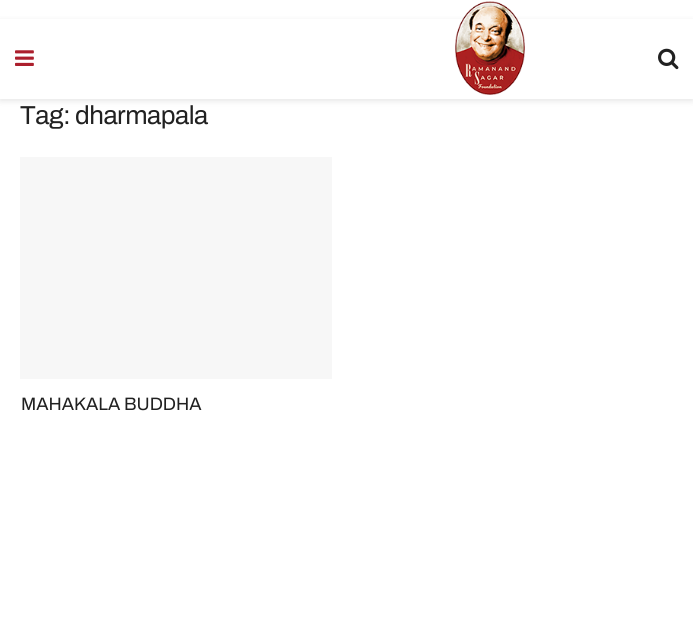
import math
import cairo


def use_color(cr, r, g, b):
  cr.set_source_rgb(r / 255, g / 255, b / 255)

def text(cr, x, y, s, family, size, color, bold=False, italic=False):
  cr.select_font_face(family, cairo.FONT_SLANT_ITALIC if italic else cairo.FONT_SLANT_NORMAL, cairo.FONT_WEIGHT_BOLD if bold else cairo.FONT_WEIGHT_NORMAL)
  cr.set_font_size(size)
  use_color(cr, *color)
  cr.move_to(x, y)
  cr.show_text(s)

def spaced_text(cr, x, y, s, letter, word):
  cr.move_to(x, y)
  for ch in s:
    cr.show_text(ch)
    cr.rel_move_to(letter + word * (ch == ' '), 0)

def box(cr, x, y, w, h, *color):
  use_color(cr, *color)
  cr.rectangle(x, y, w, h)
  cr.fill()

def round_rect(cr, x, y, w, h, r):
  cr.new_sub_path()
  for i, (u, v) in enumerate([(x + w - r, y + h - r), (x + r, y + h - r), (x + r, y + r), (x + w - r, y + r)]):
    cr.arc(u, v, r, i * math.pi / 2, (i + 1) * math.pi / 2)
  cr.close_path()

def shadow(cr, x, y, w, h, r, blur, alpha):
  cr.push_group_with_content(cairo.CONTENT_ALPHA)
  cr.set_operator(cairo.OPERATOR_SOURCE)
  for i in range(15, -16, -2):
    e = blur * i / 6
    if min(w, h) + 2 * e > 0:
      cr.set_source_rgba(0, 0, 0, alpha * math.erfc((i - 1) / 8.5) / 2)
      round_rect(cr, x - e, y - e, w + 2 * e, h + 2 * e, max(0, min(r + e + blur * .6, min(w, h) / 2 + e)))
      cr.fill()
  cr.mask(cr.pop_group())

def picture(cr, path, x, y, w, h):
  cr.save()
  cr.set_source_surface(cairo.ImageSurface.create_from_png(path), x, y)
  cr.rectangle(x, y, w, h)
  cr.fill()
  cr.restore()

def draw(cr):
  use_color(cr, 255, 255, 255)
  cr.paint()
  cr.save()
  cr.set_fill_rule(cairo.FILL_RULE_EVEN_ODD)
  cr.new_path()
  cr.move_to(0, 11)
  cr.line_to(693, 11)
  cr.line_to(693, 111)
  cr.line_to(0, 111)
  cr.close_path()
  cr.move_to(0, 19)
  cr.line_to(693, 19)
  cr.line_to(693, 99)
  cr.line_to(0, 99)
  cr.close_path()
  cr.clip()
  use_color(cr, 0, 0, 0)
  shadow(cr, 0, 21, 693, 80, 0, 3, 0.1)
  cr.restore()
  picture(cr, "img_01.png", 15, 50, 19, 16)
  picture(cr, "img_02.png", 455, 1, 70, 94)
  picture(cr, "img_03.png", 658, 48, 21, 22)
  box(cr, 20, 157, 312, 222, 247, 247, 247)
  cr.select_font_face("Archivo SemiBold")
  cr.set_font_size(26)
  use_color(cr, 33, 33, 33)
  spaced_text(cr, 20, 124, "Tag: dharmapala", -0.5, 0)
  text(cr, 21, 410, "MAHAKALA BUDDHA", "Archivo SemiBold", 18, (33, 33, 33))


surface = cairo.ImageSurface(cairo.FORMAT_RGB24, 693, 644)
cr = cairo.Context(surface)
options = cairo.FontOptions()
options.set_hint_metrics(cairo.HINT_METRICS_OFF)
options.set_hint_style(cairo.HINT_STYLE_NONE)
cr.set_font_options(options)
cr.set_miter_limit(4)
draw(cr)
surface.write_to_png("out.png")
